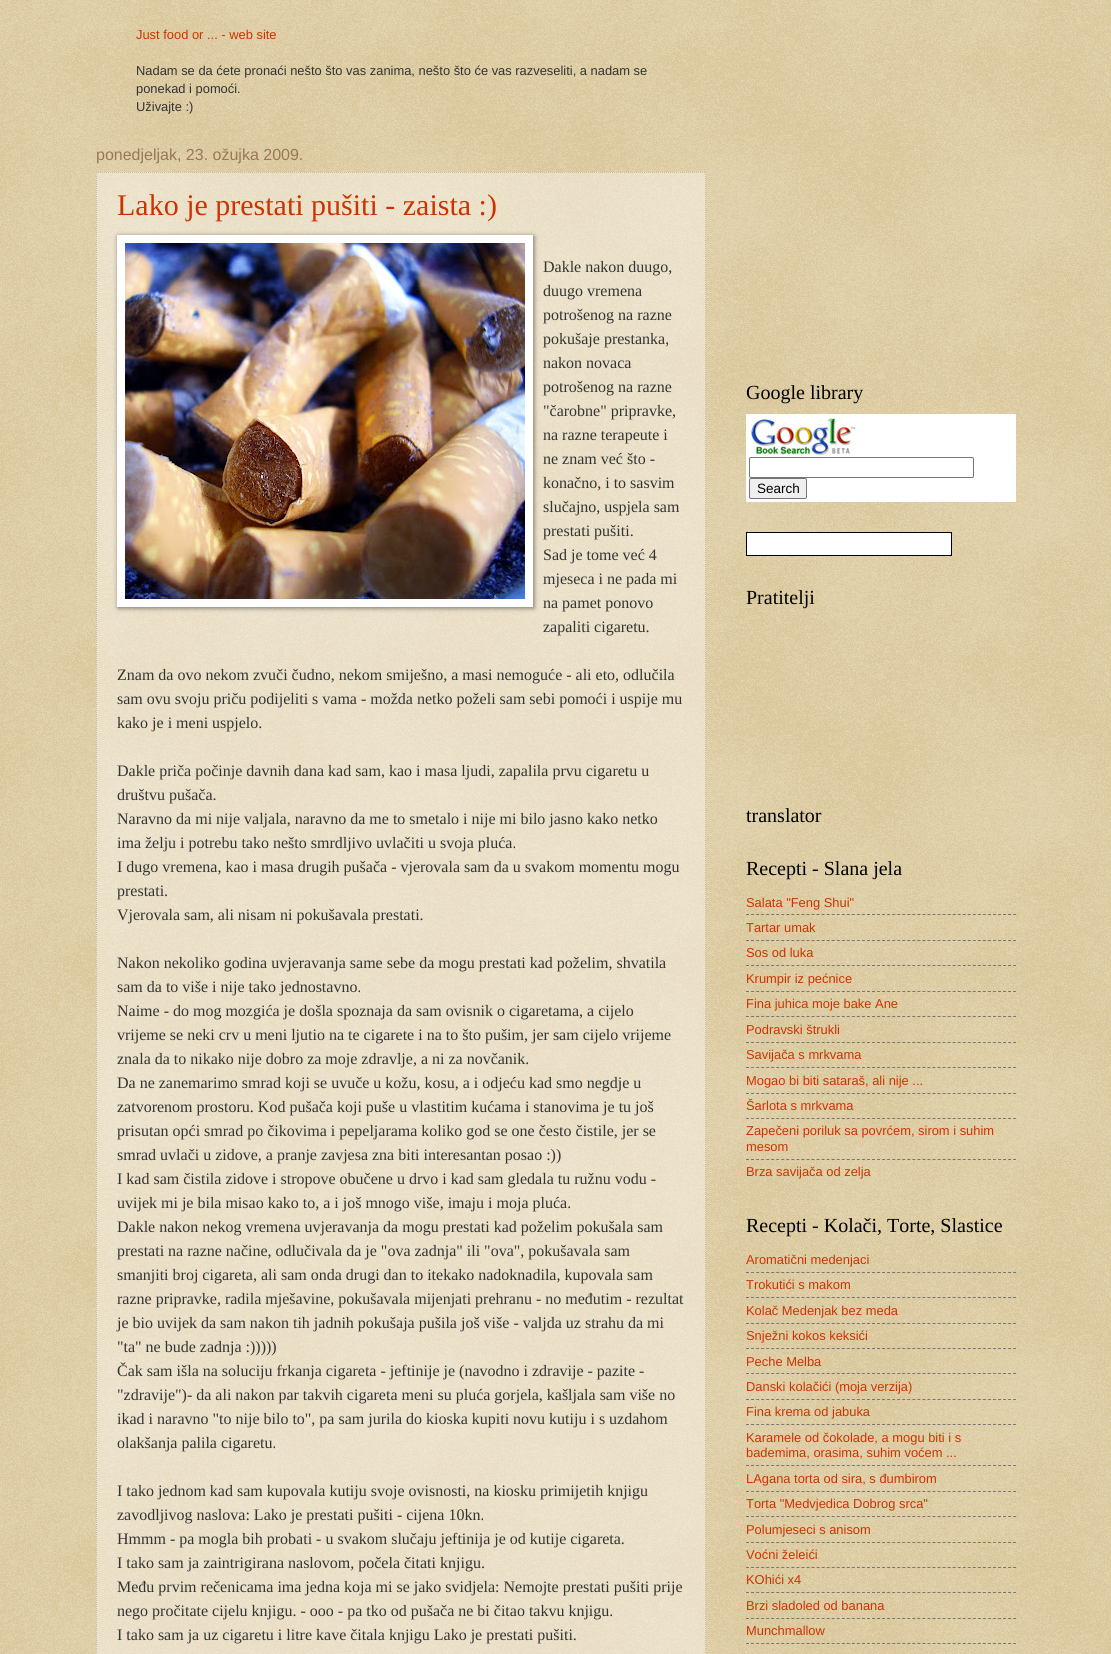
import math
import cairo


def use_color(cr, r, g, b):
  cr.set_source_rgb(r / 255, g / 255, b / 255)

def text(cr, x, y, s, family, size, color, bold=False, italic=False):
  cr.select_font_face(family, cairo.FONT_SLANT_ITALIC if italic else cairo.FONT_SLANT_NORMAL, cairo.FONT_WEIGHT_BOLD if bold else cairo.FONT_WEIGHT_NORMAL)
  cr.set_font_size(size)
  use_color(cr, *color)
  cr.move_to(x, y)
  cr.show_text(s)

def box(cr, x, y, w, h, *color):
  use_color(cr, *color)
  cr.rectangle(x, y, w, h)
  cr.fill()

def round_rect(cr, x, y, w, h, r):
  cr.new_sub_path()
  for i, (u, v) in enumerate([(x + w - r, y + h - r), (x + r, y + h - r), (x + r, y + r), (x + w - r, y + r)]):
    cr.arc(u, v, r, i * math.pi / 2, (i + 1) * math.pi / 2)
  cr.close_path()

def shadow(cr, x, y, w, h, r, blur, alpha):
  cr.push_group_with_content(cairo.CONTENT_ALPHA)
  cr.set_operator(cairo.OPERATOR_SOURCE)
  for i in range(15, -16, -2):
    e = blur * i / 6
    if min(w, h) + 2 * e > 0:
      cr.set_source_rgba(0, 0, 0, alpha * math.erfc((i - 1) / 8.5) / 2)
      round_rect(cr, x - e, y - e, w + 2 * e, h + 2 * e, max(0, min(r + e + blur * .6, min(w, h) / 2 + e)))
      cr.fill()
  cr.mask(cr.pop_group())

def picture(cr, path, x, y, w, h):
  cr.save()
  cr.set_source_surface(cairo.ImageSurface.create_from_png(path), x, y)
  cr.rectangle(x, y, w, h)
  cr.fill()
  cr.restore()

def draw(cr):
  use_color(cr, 192, 161, 84)
  cr.paint()
  picture(cr, "img_01.png", 0, 0, 1111, 1654)
  cr.set_source_rgba(1, 1, 1, 0.4)
  cr.rectangle(96, 172, 610, 1482)
  cr.fill()
  cr.new_path()
  cr.move_to(96, 172.5)
  cr.line_to(706, 172.5)
  use_color(cr, 204, 187, 153)
  cr.set_line_width(1)
  cr.set_dash([1, 1])
  cr.stroke()
  cr.new_path()
  cr.move_to(705.5, 172)
  cr.line_to(705.5, 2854)
  cr.stroke()
  cr.new_path()
  cr.move_to(96.5, 172)
  cr.line_to(96.5, 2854)
  cr.stroke()
  use_color(cr, 0, 0, 0)
  shadow(cr, 118, 236, 416, 372, 0, 2.5, 0.5)
  box(cr, 117, 235, 416, 372, 255, 255, 255)
  picture(cr, "img_02.png", 125, 243, 400, 356)
  box(cr, 746, 414, 270, 88, 255, 255, 255)
  picture(cr, "img_03.png", 751, 418, 105, 37)
  round_rect(cr, 749.5, 457.5, 224, 20, 1.5)
  use_color(cr, 118, 118, 118)
  cr.set_dash([])
  cr.stroke()
  use_color(cr, 239, 239, 239)
  round_rect(cr, 749.5, 478.5, 57, 20, 1.5)
  cr.fill_preserve()
  use_color(cr, 118, 118, 118)
  cr.stroke()
  use_color(cr, 255, 255, 255)
  cr.rectangle(746.5, 532.5, 205, 23)
  cr.fill_preserve()
  use_color(cr, 0, 0, 0)
  cr.stroke()
  cr.new_path()
  cr.move_to(746, 914.5)
  cr.line_to(1016, 914.5)
  use_color(cr, 119, 119, 119)
  cr.set_dash([3, 2.04])
  cr.stroke()
  cr.new_path()
  cr.move_to(746, 940.5)
  cr.line_to(1016, 940.5)
  cr.stroke()
  cr.new_path()
  cr.move_to(746, 965.5)
  cr.line_to(1016, 965.5)
  cr.stroke()
  cr.new_path()
  cr.move_to(746, 991.5)
  cr.line_to(1016, 991.5)
  cr.stroke()
  cr.new_path()
  cr.move_to(746, 1016.5)
  cr.line_to(1016, 1016.5)
  cr.stroke()
  cr.new_path()
  cr.move_to(746, 1042.5)
  cr.line_to(1016, 1042.5)
  cr.stroke()
  cr.new_path()
  cr.move_to(746, 1067.5)
  cr.line_to(1016, 1067.5)
  cr.stroke()
  cr.new_path()
  cr.move_to(746, 1093.5)
  cr.line_to(1016, 1093.5)
  cr.stroke()
  cr.new_path()
  cr.move_to(746, 1118.5)
  cr.line_to(1016, 1118.5)
  cr.stroke()
  cr.new_path()
  cr.move_to(746, 1159.5)
  cr.line_to(1016, 1159.5)
  cr.stroke()
  cr.new_path()
  cr.move_to(746, 1272.5)
  cr.line_to(1016, 1272.5)
  cr.stroke()
  cr.new_path()
  cr.move_to(746, 1297.5)
  cr.line_to(1016, 1297.5)
  cr.stroke()
  cr.new_path()
  cr.move_to(746, 1323.5)
  cr.line_to(1016, 1323.5)
  cr.stroke()
  cr.new_path()
  cr.move_to(746, 1348.5)
  cr.line_to(1016, 1348.5)
  cr.stroke()
  cr.new_path()
  cr.move_to(746, 1373.5)
  cr.line_to(1016, 1373.5)
  cr.stroke()
  cr.new_path()
  cr.move_to(746, 1399.5)
  cr.line_to(1016, 1399.5)
  cr.stroke()
  cr.new_path()
  cr.move_to(746, 1424.5)
  cr.line_to(1016, 1424.5)
  cr.stroke()
  cr.new_path()
  cr.move_to(746, 1465.5)
  cr.line_to(1016, 1465.5)
  cr.stroke()
  cr.new_path()
  cr.move_to(746, 1491.5)
  cr.line_to(1016, 1491.5)
  cr.stroke()
  cr.new_path()
  cr.move_to(746, 1516.5)
  cr.line_to(1016, 1516.5)
  cr.stroke()
  cr.new_path()
  cr.move_to(746, 1542.5)
  cr.line_to(1016, 1542.5)
  cr.stroke()
  cr.new_path()
  cr.move_to(746, 1567.5)
  cr.line_to(1016, 1567.5)
  cr.stroke()
  cr.new_path()
  cr.move_to(746, 1592.5)
  cr.line_to(1016, 1592.5)
  cr.stroke()
  cr.new_path()
  cr.move_to(746, 1618.5)
  cr.line_to(1016, 1618.5)
  cr.stroke()
  cr.new_path()
  cr.move_to(746, 1643.5)
  cr.line_to(1016, 1643.5)
  cr.stroke()
  text(cr, 136, 39, "Just food or ... - web site", "Liberation Sans", 12.9, (204, 51, 0))
  text(cr, 136, 75, "Nadam se da ćete pronaći nešto što vas zanima, nešto što će vas razveseliti, a nadam se", "Liberation Sans", 12.9, (51, 51, 51))
  text(cr, 136, 93, "ponekad i pomoći.", "Liberation Sans", 12.9, (51, 51, 51))
  text(cr, 136, 111, "Uživajte :)", "Liberation Sans", 12.9, (51, 51, 51))
  text(cr, 96, 160, "ponedjeljak, 23. ožujka 2009.", "Liberation Sans", 16, (153, 119, 85))
  text(cr, 117, 215, "Lako je prestati pušiti - zaista :)", "Liberation Serif", 30, (204, 51, 0))
  text(cr, 543, 272, "Dakle nakon duugo,", "Liberation Serif", 16, (51, 51, 51))
  text(cr, 543, 296, "duugo vremena", "Liberation Serif", 16, (51, 51, 51))
  text(cr, 543, 320, "potrošenog na razne", "Liberation Serif", 16, (51, 51, 51))
  text(cr, 543, 344, "pokušaje prestanka,", "Liberation Serif", 16, (51, 51, 51))
  text(cr, 543, 368, "nakon novaca", "Liberation Serif", 16, (51, 51, 51))
  text(cr, 543, 392, "potrošenog na razne", "Liberation Serif", 16, (51, 51, 51))
  text(cr, 543, 416, "\"čarobne\" pripravke,", "Liberation Serif", 16, (51, 51, 51))
  text(cr, 543, 440, "na razne terapeute i", "Liberation Serif", 16, (51, 51, 51))
  text(cr, 543, 464, "ne znam već što -", "Liberation Serif", 16, (51, 51, 51))
  text(cr, 543, 488, "konačno, i to sasvim", "Liberation Serif", 16, (51, 51, 51))
  text(cr, 543, 512, "slučajno, uspjela sam", "Liberation Serif", 16, (51, 51, 51))
  text(cr, 543, 536, "prestati pušiti.", "Liberation Serif", 16, (51, 51, 51))
  text(cr, 543, 560, "Sad je tome već 4", "Liberation Serif", 16, (51, 51, 51))
  text(cr, 543, 584, "mjeseca i ne pada mi", "Liberation Serif", 16, (51, 51, 51))
  text(cr, 543, 608, "na pamet ponovo", "Liberation Serif", 16, (51, 51, 51))
  text(cr, 543, 632, "zapaliti cigaretu.", "Liberation Serif", 16, (51, 51, 51))
  text(cr, 117, 680, "Znam da ovo nekom zvuči čudno, nekom smiješno, a masi nemoguće - ali eto, odlučila", "Liberation Serif", 16, (51, 51, 51))
  text(cr, 117, 704, "sam ovu svoju priču podijeliti s vama - možda netko poželi sam sebi pomoći i uspije mu", "Liberation Serif", 16, (51, 51, 51))
  text(cr, 117, 728, "kako je i meni uspjelo.", "Liberation Serif", 16, (51, 51, 51))
  text(cr, 117, 776, "Dakle priča počinje davnih dana kad sam, kao i masa ljudi, zapalila prvu cigaretu u", "Liberation Serif", 16, (51, 51, 51))
  text(cr, 117, 800, "društvu pušača.", "Liberation Serif", 16, (51, 51, 51))
  text(cr, 117, 824, "Naravno da mi nije valjala, naravno da me to smetalo i nije mi bilo jasno kako netko", "Liberation Serif", 16, (51, 51, 51))
  text(cr, 117, 848, "ima želju i potrebu tako nešto smrdljivo uvlačiti u svoja pluća.", "Liberation Serif", 16, (51, 51, 51))
  text(cr, 117, 872, "I dugo vremena, kao i masa drugih pušača - vjerovala sam da u svakom momentu mogu", "Liberation Serif", 16, (51, 51, 51))
  text(cr, 117, 896, "prestati.", "Liberation Serif", 16, (51, 51, 51))
  text(cr, 117, 920, "Vjerovala sam, ali nisam ni pokušavala prestati.", "Liberation Serif", 16, (51, 51, 51))
  text(cr, 117, 968, "Nakon nekoliko godina uvjeravanja same sebe da mogu prestati kad poželim, shvatila", "Liberation Serif", 16, (51, 51, 51))
  text(cr, 117, 992, "sam da to više i nije tako jednostavno.", "Liberation Serif", 16, (51, 51, 51))
  text(cr, 117, 1016, "Naime - do mog mozgića je došla spoznaja da sam ovisnik o cigaretama, a cijelo", "Liberation Serif", 16, (51, 51, 51))
  text(cr, 117, 1040, "vrijeme se neki crv u meni ljutio na te cigarete i na to što pušim, jer sam cijelo vrijeme", "Liberation Serif", 16, (51, 51, 51))
  text(cr, 117, 1064, "znala da to nikako nije dobro za moje zdravlje, a ni za novčanik.", "Liberation Serif", 16, (51, 51, 51))
  text(cr, 117, 1088, "Da ne zanemarimo smrad koji se uvuče u kožu, kosu, a i odjeću kad smo negdje u", "Liberation Serif", 16, (51, 51, 51))
  text(cr, 117, 1112, "zatvorenom prostoru. Kod pušača koji puše u vlastitim kućama i stanovima je tu još", "Liberation Serif", 16, (51, 51, 51))
  text(cr, 117, 1136, "prisutan opći smrad po čikovima i pepeljarama koliko god se one često čistile, jer se", "Liberation Serif", 16, (51, 51, 51))
  text(cr, 117, 1160, "smrad uvlači u zidove, a pranje zavjesa zna biti interesantan posao :))", "Liberation Serif", 16, (51, 51, 51))
  text(cr, 117, 1184, "I kad sam čistila zidove i stropove obučene u drvo i kad sam gledala tu ružnu vodu -", "Liberation Serif", 16, (51, 51, 51))
  text(cr, 117, 1208, "uvijek mi je bila misao kako to, a i još mnogo više, imaju i moja pluća.", "Liberation Serif", 16, (51, 51, 51))
  text(cr, 117, 1232, "Dakle nakon nekog vremena uvjeravanja da mogu prestati kad poželim pokušala sam", "Liberation Serif", 16, (51, 51, 51))
  text(cr, 117, 1256, "prestati na razne načine, odlučivala da je \"ova zadnja\" ili \"ova\", pokušavala sam", "Liberation Serif", 16, (51, 51, 51))
  text(cr, 117, 1280, "smanjiti broj cigareta, ali sam onda drugi dan to itekako nadoknadila, kupovala sam", "Liberation Serif", 16, (51, 51, 51))
  text(cr, 117, 1304, "razne pripravke, radila mješavine, pokušavala mijenjati prehranu - no međutim - rezultat", "Liberation Serif", 16, (51, 51, 51))
  text(cr, 117, 1328, "je bio uvijek da sam nakon tih jadnih pokušaja pušila još više - valjda uz strahu da mi", "Liberation Serif", 16, (51, 51, 51))
  text(cr, 117, 1352, "\"ta\" ne bude zadnja :)))))", "Liberation Serif", 16, (51, 51, 51))
  text(cr, 117, 1376, "Čak sam išla na soluciju frkanja cigareta - jeftinije je (navodno i zdravije - pazite -", "Liberation Serif", 16, (51, 51, 51))
  text(cr, 117, 1400, "\"zdravije\")- da ali nakon par takvih cigareta meni su pluća gorjela, kašljala sam više no", "Liberation Serif", 16, (51, 51, 51))
  text(cr, 117, 1424, "ikad i naravno \"to nije bilo to\", pa sam jurila do kioska kupiti novu kutiju i s uzdahom", "Liberation Serif", 16, (51, 51, 51))
  text(cr, 117, 1448, "olakšanja palila cigaretu.", "Liberation Serif", 16, (51, 51, 51))
  text(cr, 117, 1496, "I tako jednom kad sam kupovala kutiju svoje ovisnosti, na kiosku primijetih knjigu", "Liberation Serif", 16, (51, 51, 51))
  text(cr, 117, 1520, "zavodljivog naslova: Lako je prestati pušiti - cijena 10kn.", "Liberation Serif", 16, (51, 51, 51))
  text(cr, 117, 1544, "Hmmm - pa mogla bih probati - u svakom slučaju jeftinija je od kutije cigareta.", "Liberation Serif", 16, (51, 51, 51))
  text(cr, 117, 1568, "I tako sam ja zaintrigirana naslovom, počela čitati knjigu.", "Liberation Serif", 16, (51, 51, 51))
  text(cr, 117, 1592, "Među prvim rečenicama ima jedna koja mi se jako svidjela: Nemojte prestati pušiti prije", "Liberation Serif", 16, (51, 51, 51))
  text(cr, 117, 1616, "nego pročitate cijelu knjigu. - ooo - pa tko od pušača ne bi čitao takvu knjigu.", "Liberation Serif", 16, (51, 51, 51))
  text(cr, 117, 1640, "I tako sam ja uz cigaretu i litre kave čitala knjigu Lako je prestati pušiti.", "Liberation Serif", 16, (51, 51, 51))
  text(cr, 746, 399, "Google library", "Liberation Serif", 20, (0, 0, 0))
  text(cr, 757, 493, "Search", "Liberation Sans", 13.5, (0, 0, 0))
  text(cr, 746, 604, "Pratitelji", "Liberation Serif", 20, (0, 0, 0))
  text(cr, 746, 822, "translator", "Liberation Serif", 20, (0, 0, 0))
  text(cr, 746, 875, "Recepti - Slana jela", "Liberation Serif", 20, (0, 0, 0))
  text(cr, 746, 907, "Salata \"Feng Shui\"", "Liberation Sans", 12.9, (204, 51, 0))
  text(cr, 746, 932, "Tartar umak", "Liberation Sans", 12.9, (204, 51, 0))
  text(cr, 746, 957, "Sos od luka", "Liberation Sans", 12.9, (204, 51, 0))
  text(cr, 746, 983, "Krumpir iz pećnice", "Liberation Sans", 12.9, (204, 51, 0))
  text(cr, 746, 1008, "Fina juhica moje bake Ane", "Liberation Sans", 12.9, (204, 51, 0))
  text(cr, 746, 1034, "Podravski štrukli", "Liberation Sans", 12.9, (204, 51, 0))
  text(cr, 746, 1059, "Savijača s mrkvama", "Liberation Sans", 12.9, (204, 51, 0))
  text(cr, 746, 1085, "Mogao bi biti sataraš, ali nije ...", "Liberation Sans", 12.9, (204, 51, 0))
  text(cr, 746, 1110, "Šarlota s mrkvama", "Liberation Sans", 12.9, (204, 51, 0))
  text(cr, 746, 1135, "Zapečeni poriluk sa povrćem, sirom i suhim", "Liberation Sans", 12.9, (204, 51, 0))
  text(cr, 746, 1151, "mesom", "Liberation Sans", 12.9, (204, 51, 0))
  text(cr, 746, 1176, "Brza savijača od zelja", "Liberation Sans", 12.9, (204, 51, 0))
  text(cr, 746, 1232, "Recepti - Kolači, Torte, Slastice", "Liberation Serif", 20, (0, 0, 0))
  text(cr, 746, 1264, "Aromatični medenjaci", "Liberation Sans", 12.9, (204, 51, 0))
  text(cr, 746, 1289, "Trokutići s makom", "Liberation Sans", 12.9, (204, 51, 0))
  text(cr, 746, 1315, "Kolač Medenjak bez meda", "Liberation Sans", 12.9, (204, 51, 0))
  text(cr, 746, 1340, "Snježni kokos keksići", "Liberation Sans", 12.9, (204, 51, 0))
  text(cr, 746, 1366, "Peche Melba", "Liberation Sans", 12.9, (204, 51, 0))
  text(cr, 746, 1391, "Danski kolačići (moja verzija)", "Liberation Sans", 12.9, (204, 51, 0))
  text(cr, 746, 1416, "Fina krema od jabuka", "Liberation Sans", 12.9, (204, 51, 0))
  text(cr, 746, 1442, "Karamele od čokolade, a mogu biti i s", "Liberation Sans", 12.9, (204, 51, 0))
  text(cr, 746, 1457, "bademima, orasima, suhim voćem ...", "Liberation Sans", 12.9, (204, 51, 0))
  text(cr, 746, 1483, "LAgana torta od sira, s đumbirom", "Liberation Sans", 12.9, (204, 51, 0))
  text(cr, 746, 1508, "Torta \"Medvjedica Dobrog srca\"", "Liberation Sans", 12.9, (204, 51, 0))
  text(cr, 746, 1534, "Polumjeseci s anisom", "Liberation Sans", 12.9, (204, 51, 0))
  text(cr, 746, 1559, "Voćni želeići", "Liberation Sans", 12.9, (204, 51, 0))
  text(cr, 746, 1584, "KOhići x4", "Liberation Sans", 12.9, (204, 51, 0))
  text(cr, 746, 1610, "Brzi sladoled od banana", "Liberation Sans", 12.9, (204, 51, 0))
  text(cr, 746, 1635, "Munchmallow", "Liberation Sans", 12.9, (204, 51, 0))


surface = cairo.ImageSurface(cairo.FORMAT_RGB24, 1111, 1654)
cr = cairo.Context(surface)
options = cairo.FontOptions()
options.set_hint_metrics(cairo.HINT_METRICS_OFF)
options.set_hint_style(cairo.HINT_STYLE_NONE)
cr.set_font_options(options)
cr.set_miter_limit(4)
draw(cr)
surface.write_to_png("out.png")
